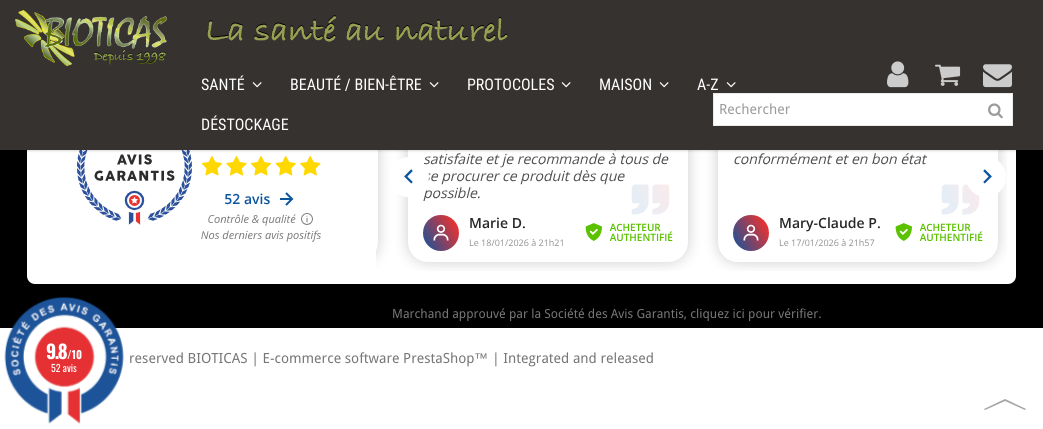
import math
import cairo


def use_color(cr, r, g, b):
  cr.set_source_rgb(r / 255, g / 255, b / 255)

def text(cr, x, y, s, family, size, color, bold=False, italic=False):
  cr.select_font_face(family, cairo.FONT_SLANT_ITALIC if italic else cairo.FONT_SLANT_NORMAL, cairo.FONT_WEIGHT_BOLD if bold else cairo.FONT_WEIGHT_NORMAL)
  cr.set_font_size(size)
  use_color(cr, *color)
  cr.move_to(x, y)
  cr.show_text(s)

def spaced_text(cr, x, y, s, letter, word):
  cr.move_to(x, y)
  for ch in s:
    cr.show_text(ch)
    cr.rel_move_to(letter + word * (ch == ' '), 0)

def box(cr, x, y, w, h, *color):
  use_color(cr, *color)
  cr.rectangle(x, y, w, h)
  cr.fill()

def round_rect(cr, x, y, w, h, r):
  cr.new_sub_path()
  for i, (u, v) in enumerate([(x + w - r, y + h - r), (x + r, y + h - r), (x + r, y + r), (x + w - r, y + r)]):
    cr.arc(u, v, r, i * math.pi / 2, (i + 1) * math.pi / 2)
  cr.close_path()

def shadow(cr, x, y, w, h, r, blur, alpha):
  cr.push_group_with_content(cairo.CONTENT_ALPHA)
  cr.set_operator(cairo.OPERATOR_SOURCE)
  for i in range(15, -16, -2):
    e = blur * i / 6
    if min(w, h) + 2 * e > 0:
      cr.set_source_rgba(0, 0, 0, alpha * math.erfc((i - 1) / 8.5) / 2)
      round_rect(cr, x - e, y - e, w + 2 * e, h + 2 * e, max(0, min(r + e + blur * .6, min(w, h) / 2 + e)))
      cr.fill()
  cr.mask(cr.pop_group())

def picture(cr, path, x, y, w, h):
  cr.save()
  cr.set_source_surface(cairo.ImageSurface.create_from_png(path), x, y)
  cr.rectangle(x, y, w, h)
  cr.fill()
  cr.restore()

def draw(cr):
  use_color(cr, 255, 255, 255)
  cr.paint()
  box(cr, 0, 150, 1043, 178, 0, 0, 0)
  picture(cr, "img_01.png", 4, 297, 120, 127)
  use_color(cr, 255, 255, 255)
  round_rect(cr, 27, 69, 989, 215, 8)
  cr.fill()
  picture(cr, "img_09.png", 77, 150, 930, 121)
  use_color(cr, 0, 0, 0)
  shadow(cr, 0, 1, 1043, 150, 0, 1, 0.15)
  box(cr, 0, 0, 1043, 150, 54, 50, 48)
  picture(cr, "img_02.png", 15, 10, 152, 56)
  picture(cr, "img_03.png", 207, 15, 301, 27)
  picture(cr, "img_04.png", 252, 82, 10, 6)
  picture(cr, "img_04.png", 429, 82, 10, 6)
  picture(cr, "img_04.png", 561, 82, 10, 6)
  picture(cr, "img_04.png", 659, 82, 10, 6)
  picture(cr, "img_04.png", 726, 82, 10, 6)
  picture(cr, "img_05.png", 887, 61, 22, 27)
  picture(cr, "img_06.png", 935, 64, 26, 22)
  picture(cr, "img_07.png", 983, 64, 29, 24)
  use_color(cr, 255, 255, 255)
  cr.rectangle(713.5, 93.5, 299, 32)
  cr.fill_preserve()
  use_color(cr, 234, 234, 234)
  cr.set_line_width(1)
  cr.stroke()
  picture(cr, "img_08.png", 988, 103, 15, 16)
  use_color(cr, 163, 163, 163)
  cr.new_path()
  cr.move_to(1005, 401)
  cr.line_to(1025, 410)
  cr.line_to(1026, 409)
  cr.line_to(1005, 399)
  cr.close_path()
  cr.move_to(984, 409)
  cr.line_to(985, 410)
  cr.line_to(1005, 401)
  cr.line_to(1005, 399)
  cr.close_path()
  cr.fill()
  cr.select_font_face("Oswald", cairo.FONT_SLANT_NORMAL, cairo.FONT_WEIGHT_BOLD)
  cr.set_font_size(19)
  use_color(cr, 255, 255, 255)
  spaced_text(cr, 46, 359, "9.8", -1.5, 0)
  text(cr, 67, 359, "/10", "Oswald", 11, (255, 255, 255), bold=True)
  text(cr, 51, 372, "52 avis", "Oswald", 10, (255, 255, 255))
  text(cr, 201, 90, "SANTÉ", "Roboto Condensed", 16, (255, 255, 255))
  text(cr, 290, 90, "BEAUTÉ / BIEN-ÊTRE", "Roboto Condensed", 16, (255, 255, 255))
  text(cr, 467, 90, "PROTOCOLES", "Roboto Condensed", 16, (255, 255, 255))
  text(cr, 599, 90, "MAISON", "Roboto Condensed", 16, (255, 255, 255))
  text(cr, 697, 90, "A-Z", "Roboto Condensed", 16, (255, 255, 255))
  text(cr, 201, 130, "DÉSTOCKAGE", "Roboto Condensed", 16, (255, 255, 255))
  text(cr, 719, 114, "Rechercher", "Droid Sans", 14, (156, 155, 155))
  text(cr, 392, 318, "Marchand approuvé par la Société des Avis Garantis, cliquez ici pour vérifier.", "Droid Sans", 12.5, (119, 119, 119))
  text(cr, 129, 363, "reserved BIOTICAS | E-commerce software PrestaShop", "Droid Sans", 14, (119, 119, 119))
  text(cr, 474, 363, "™", "Liberation Sans", 14, (119, 119, 119))
  text(cr, 492, 363, "| Integrated and released", "Droid Sans", 14, (119, 119, 119))


surface = cairo.ImageSurface(cairo.FORMAT_RGB24, 1043, 429)
cr = cairo.Context(surface)
options = cairo.FontOptions()
options.set_hint_metrics(cairo.HINT_METRICS_OFF)
options.set_hint_style(cairo.HINT_STYLE_NONE)
cr.set_font_options(options)
cr.set_miter_limit(4)
draw(cr)
surface.write_to_png("out.png")
